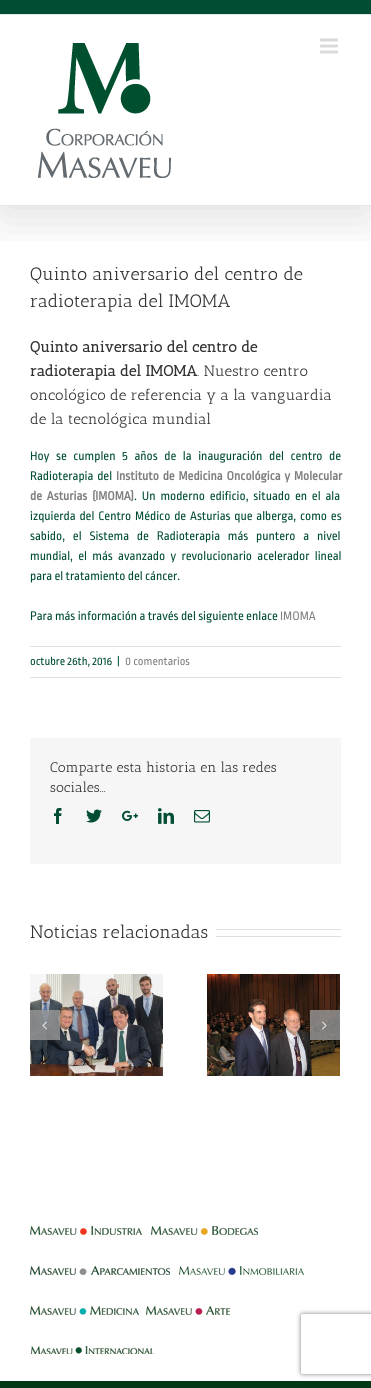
import math
import cairo


def use_color(cr, r, g, b):
  cr.set_source_rgb(r / 255, g / 255, b / 255)

def text(cr, x, y, s, family, size, color, bold=False, italic=False):
  cr.select_font_face(family, cairo.FONT_SLANT_ITALIC if italic else cairo.FONT_SLANT_NORMAL, cairo.FONT_WEIGHT_BOLD if bold else cairo.FONT_WEIGHT_NORMAL)
  cr.set_font_size(size)
  use_color(cr, *color)
  cr.move_to(x, y)
  cr.show_text(s)

def spaced_text(cr, x, y, s, letter, word):
  cr.move_to(x, y)
  for ch in s:
    cr.show_text(ch)
    cr.rel_move_to(letter + word * (ch == ' '), 0)

def box(cr, x, y, w, h, *color):
  use_color(cr, *color)
  cr.rectangle(x, y, w, h)
  cr.fill()

def round_rect(cr, x, y, w, h, r):
  cr.new_sub_path()
  for i, (u, v) in enumerate([(x + w - r, y + h - r), (x + r, y + h - r), (x + r, y + r), (x + w - r, y + r)]):
    cr.arc(u, v, r, i * math.pi / 2, (i + 1) * math.pi / 2)
  cr.close_path()

def shadow(cr, x, y, w, h, r, blur, alpha):
  cr.push_group_with_content(cairo.CONTENT_ALPHA)
  cr.set_operator(cairo.OPERATOR_SOURCE)
  for i in range(15, -16, -2):
    e = blur * i / 6
    if min(w, h) + 2 * e > 0:
      cr.set_source_rgba(0, 0, 0, alpha * math.erfc((i - 1) / 8.5) / 2)
      round_rect(cr, x - e, y - e, w + 2 * e, h + 2 * e, max(0, min(r + e + blur * .6, min(w, h) / 2 + e)))
      cr.fill()
  cr.mask(cr.pop_group())

def picture(cr, path, x, y, w, h):
  cr.save()
  cr.set_source_surface(cairo.ImageSurface.create_from_png(path), x, y)
  cr.rectangle(x, y, w, h)
  cr.fill()
  cr.restore()

def draw(cr):
  use_color(cr, 255, 255, 255)
  cr.paint()
  cr.save()
  cr.rectangle(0, 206, 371, 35)
  cr.clip()
  use_color(cr, 0, 0, 0)
  shadow(cr, 2, -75, 367, 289, 0, 25, 0.14)
  cr.restore()
  box(cr, 0, 0, 371, 14, 1, 77, 51)
  box(cr, 0, 14, 371, 1, 229, 229, 229)
  box(cr, 0, 205, 371, 1, 229, 229, 229)
  picture(cr, "img_01.png", 37, 43, 135, 135)
  picture(cr, "img_02.png", 320, 38, 18, 16)
  box(cr, 30, 646, 311, 1, 224, 222, 222)
  box(cr, 30, 677, 311, 1, 224, 222, 222)
  box(cr, 30, 738, 311, 126, 246, 246, 246)
  picture(cr, "img_03.png", 54, 808, 8, 16)
  picture(cr, "img_04.png", 86, 809, 16, 14)
  picture(cr, "img_05.png", 122, 810, 16, 11)
  picture(cr, "img_06.png", 158, 808, 16, 16)
  picture(cr, "img_07.png", 194, 810, 16, 13)
  box(cr, 216, 929, 125, 1, 224, 222, 222)
  box(cr, 216, 936, 125, 1, 224, 222, 222)
  picture(cr, "img_08.png", 30, 974, 133, 102)
  picture(cr, "img_09.png", 207, 974, 133, 102)
  cr.set_source_rgba(0.6, 0.6, 0.6, 0.8)
  cr.rectangle(30, 1010, 30, 30)
  cr.fill()
  picture(cr, "img_10.png", 42, 1021, 5, 9)
  cr.rectangle(310, 1010, 30, 30)
  cr.fill()
  picture(cr, "img_11.png", 322, 1021, 5, 9)
  picture(cr, "img_12.png", 30, 1226, 112, 9)
  picture(cr, "img_13.png", 151, 1226, 107, 9)
  picture(cr, "img_14.png", 30, 1266, 140, 9)
  picture(cr, "img_15.png", 179, 1266, 125, 9)
  picture(cr, "img_16.png", 30, 1306, 109, 9)
  picture(cr, "img_17.png", 146, 1306, 84, 9)
  picture(cr, "img_18.png", 31, 1346, 123, 8)
  cr.save()
  cr.set_fill_rule(cairo.FILL_RULE_EVEN_ODD)
  cr.new_path()
  cr.move_to(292, 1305)
  cr.line_to(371, 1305)
  cr.line_to(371, 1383)
  cr.line_to(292, 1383)
  cr.close_path()
  cr.move_to(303, 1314)
  cr.line_to(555, 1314)
  cr.curve_to(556, 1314, 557, 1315, 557, 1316)
  cr.line_to(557, 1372)
  cr.curve_to(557, 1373, 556, 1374, 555, 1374)
  cr.line_to(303, 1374)
  cr.curve_to(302, 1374, 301, 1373, 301, 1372)
  cr.line_to(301, 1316)
  cr.curve_to(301, 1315, 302, 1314, 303, 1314)
  cr.close_path()
  cr.clip()
  use_color(cr, 128, 128, 128)
  shadow(cr, 301, 1314, 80, 60, 2, 2.5, 1)
  cr.restore()
  box(cr, 0, 1381, 371, 7, 0, 57, 19)
  text(cr, 30, 280, "Quinto aniversario del centro de", "Antic Slab", 18, (51, 51, 51))
  text(cr, 30, 307, "radioterapia del IMOMA", "Antic Slab", 18, (51, 51, 51))
  text(cr, 30, 352, "Quinto aniversario del centro de", "Antic Slab", 15, (51, 51, 51), bold=True)
  text(cr, 30, 376, "radioterapia del IMOMA", "Antic Slab", 15, (51, 51, 51), bold=True)
  text(cr, 197, 376, ". Nuestro centro", "Antic Slab", 15, (51, 51, 51))
  text(cr, 30, 400, "oncológico de referencia y a la vanguardia", "Antic Slab", 15, (51, 51, 51))
  text(cr, 30, 424, "de la tecnológica mundial", "Antic Slab", 15, (51, 51, 51))
  cr.select_font_face("Ropa Sans")
  cr.set_font_size(13)
  use_color(cr, 1, 77, 51)
  spaced_text(cr, 30, 460, "Hoy se cumplen 5 años de la inauguración del centro de", 0, 4.25)
  spaced_text(cr, 30, 480, "Radioterapia del", 0, 1.5)
  cr.select_font_face("Ropa Sans", cairo.FONT_SLANT_NORMAL, cairo.FONT_WEIGHT_BOLD)
  use_color(cr, 127, 127, 127)
  spaced_text(cr, 116, 480, "Instituto de Medicina Oncológica y Molecular", 0, 1.5)
  spaced_text(cr, 30, 500, "de Asturias (IMOMA)", 0, 2.5)
  cr.select_font_face("Ropa Sans")
  use_color(cr, 1, 77, 51)
  spaced_text(cr, 134, 500, ". Un moderno edificio, situado en el ala", 0, 2.5)
  spaced_text(cr, 30, 520, "izquierda del Centro Médico de Asturias que alberga, como es", 0, 1.5)
  spaced_text(cr, 30, 540, "sabido, el Sistema de Radioterapia más puntero a nivel", 0, 5.5)
  spaced_text(cr, 30, 560, "mundial, el más avanzado y revolucionario acelerador lineal", 0, 3)
  text(cr, 30, 580, "para el tratamiento del cáncer.", "Ropa Sans", 13, (1, 77, 51))
  text(cr, 30, 620, "Para más información a través del siguiente enlace", "Ropa Sans", 13, (1, 77, 51))
  text(cr, 280, 620, "IMOMA", "Ropa Sans", 13, (127, 127, 127))
  text(cr, 30, 665, "octubre 26th, 2016", "Ropa Sans", 12, (1, 77, 51))
  text(cr, 117, 665, "|", "Ropa Sans", 12, (1, 77, 51))
  text(cr, 125, 665, "0 comentarios", "Ropa Sans", 12, (127, 127, 127))
  text(cr, 50, 772, "Comparte esta historia en las redes", "Antic Slab", 14, (51, 51, 51))
  text(cr, 50, 792, "sociales...", "Antic Slab", 14, (51, 51, 51))
  text(cr, 30, 938, "Noticias relacionadas", "Antic Slab", 18, (51, 51, 51))


surface = cairo.ImageSurface(cairo.FORMAT_RGB24, 371, 1388)
cr = cairo.Context(surface)
options = cairo.FontOptions()
options.set_hint_metrics(cairo.HINT_METRICS_OFF)
options.set_hint_style(cairo.HINT_STYLE_NONE)
cr.set_font_options(options)
cr.set_miter_limit(4)
draw(cr)
surface.write_to_png("out.png")
